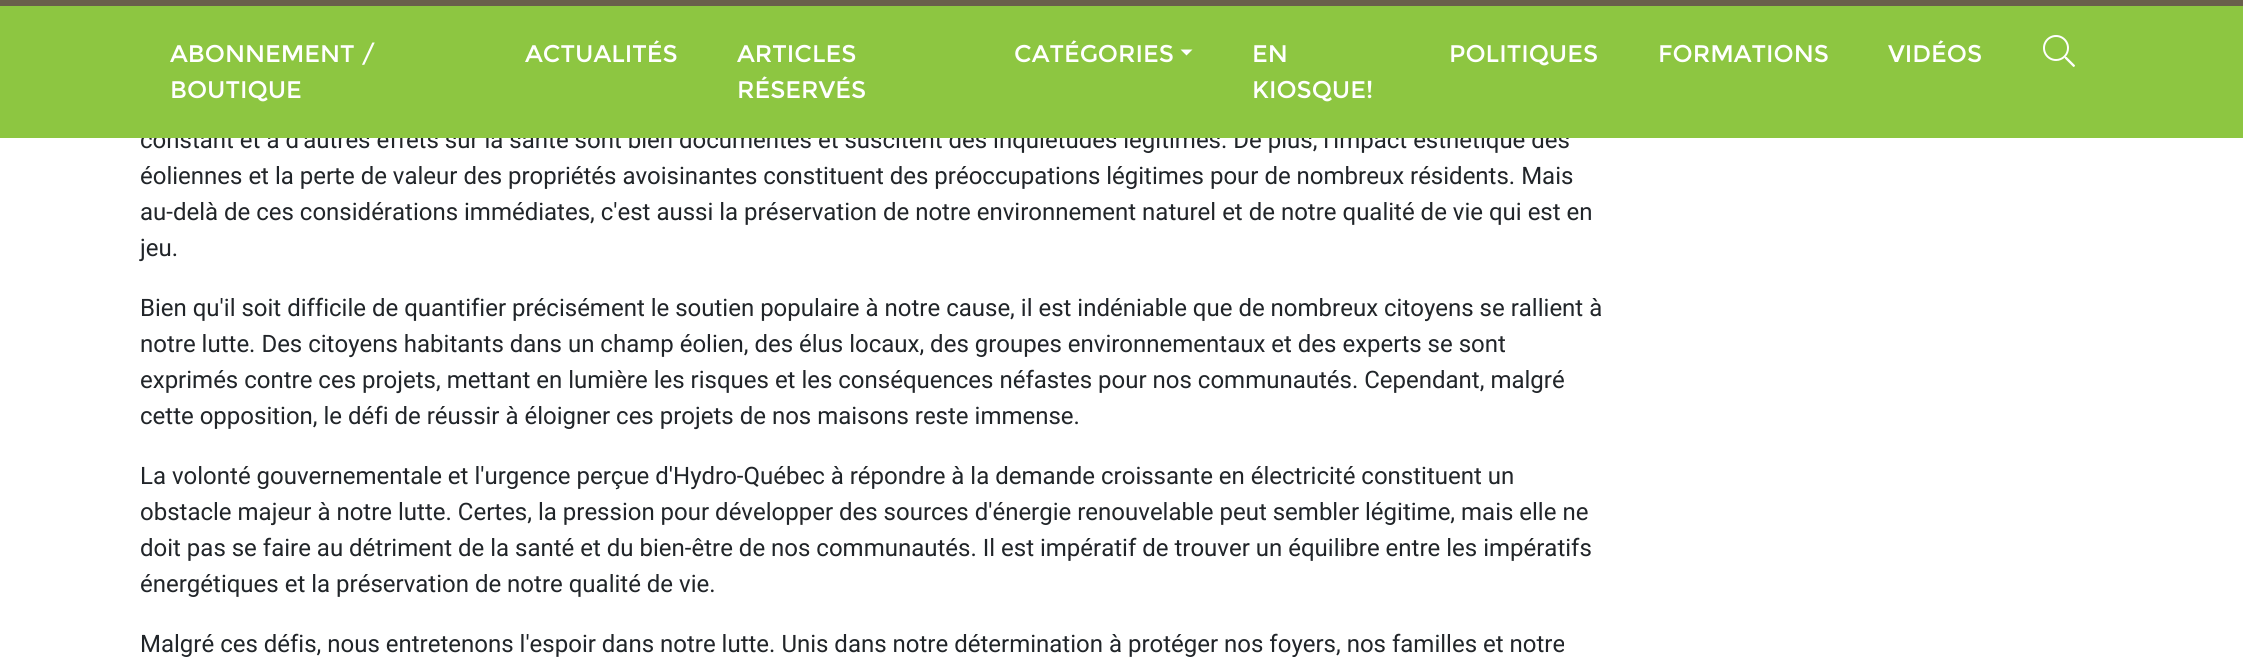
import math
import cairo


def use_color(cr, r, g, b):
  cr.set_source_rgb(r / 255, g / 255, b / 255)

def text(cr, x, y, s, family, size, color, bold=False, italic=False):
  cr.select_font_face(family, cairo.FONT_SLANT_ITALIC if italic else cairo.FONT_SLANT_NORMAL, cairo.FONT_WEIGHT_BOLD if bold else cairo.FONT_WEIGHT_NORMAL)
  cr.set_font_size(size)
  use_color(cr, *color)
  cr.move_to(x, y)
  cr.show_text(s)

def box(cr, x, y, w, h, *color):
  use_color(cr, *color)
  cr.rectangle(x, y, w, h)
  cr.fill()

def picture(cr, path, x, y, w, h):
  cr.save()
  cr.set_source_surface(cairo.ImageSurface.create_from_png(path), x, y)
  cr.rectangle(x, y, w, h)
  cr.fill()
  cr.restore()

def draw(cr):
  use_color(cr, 255, 255, 255)
  cr.paint()
  box(cr, 0, 0, 2243, 6, 105, 95, 75)
  text(cr, 140, 148, "constant et à d'autres effets sur la santé sont bien documentés et suscitent des inquiétudes légitimes. De plus, l'impact esthétique des", "Roboto", 24, (33, 37, 41))
  box(cr, 0, 6, 2243, 132, 141, 198, 65)
  use_color(cr, 255, 255, 255)
  cr.new_path()
  cr.move_to(1180.5, 49.5)
  cr.line_to(1192.5, 49.5)
  cr.line_to(1186.5, 55.5)
  cr.close_path()
  cr.fill()
  text(cr, 1014, 62, "CATÉGORIES", "Montserrat", 24, (255, 255, 255))
  picture(cr, "img_01.png", 2043, 35, 32, 32)
  text(cr, 1888, 62, "VIDÉOS", "Montserrat", 24, (255, 255, 255))
  text(cr, 1658, 62, "FORMATIONS", "Montserrat", 24, (255, 255, 255))
  text(cr, 1449, 62, "POLITIQUES", "Montserrat", 24, (255, 255, 255))
  text(cr, 1252, 98, "KIOSQUE!", "Montserrat", 24, (255, 255, 255))
  text(cr, 1252, 62, "EN", "Montserrat", 24, (255, 255, 255))
  text(cr, 737, 98, "RÉSERVÉS", "Montserrat", 24, (255, 255, 255))
  text(cr, 737, 62, "ARTICLES", "Montserrat", 24, (255, 255, 255))
  text(cr, 525, 62, "ACTUALITÉS", "Montserrat", 24, (255, 255, 255))
  text(cr, 170, 98, "BOUTIQUE", "Montserrat", 24, (255, 255, 255))
  text(cr, 170, 62, "ABONNEMENT /", "Montserrat", 24, (255, 255, 255))
  text(cr, 140, 184, "éoliennes et la perte de valeur des propriétés avoisinantes constituent des préoccupations légitimes pour de nombreux résidents. Mais", "Roboto", 24, (33, 37, 41))
  text(cr, 140, 220, "au-delà de ces considérations immédiates, c'est aussi la préservation de notre environnement naturel et de notre qualité de vie qui est en", "Roboto", 24, (33, 37, 41))
  text(cr, 140, 256, "jeu.", "Roboto", 24, (33, 37, 41))
  text(cr, 140, 316, "Bien qu'il soit difficile de quantifier précisément le soutien populaire à notre cause, il est indéniable que de nombreux citoyens se rallient à", "Roboto", 24, (33, 37, 41))
  text(cr, 140, 352, "notre lutte. Des citoyens habitants dans un champ éolien, des élus locaux, des groupes environnementaux et des experts se sont", "Roboto", 24, (33, 37, 41))
  text(cr, 140, 388, "exprimés contre ces projets, mettant en lumière les risques et les conséquences néfastes pour nos communautés. Cependant, malgré", "Roboto", 24, (33, 37, 41))
  text(cr, 140, 424, "cette opposition, le défi de réussir à éloigner ces projets de nos maisons reste immense.", "Roboto", 24, (33, 37, 41))
  text(cr, 140, 484, "La volonté gouvernementale et l'urgence perçue d'Hydro-Québec à répondre à la demande croissante en électricité constituent un", "Roboto", 24, (33, 37, 41))
  text(cr, 140, 520, "obstacle majeur à notre lutte. Certes, la pression pour développer des sources d'énergie renouvelable peut sembler légitime, mais elle ne", "Roboto", 24, (33, 37, 41))
  text(cr, 140, 556, "doit pas se faire au détriment de la santé et du bien-être de nos communautés. Il est impératif de trouver un équilibre entre les impératifs", "Roboto", 24, (33, 37, 41))
  text(cr, 140, 592, "énergétiques et la préservation de notre qualité de vie.", "Roboto", 24, (33, 37, 41))
  text(cr, 140, 652, "Malgré ces défis, nous entretenons l'espoir dans notre lutte. Unis dans notre détermination à protéger nos foyers, nos familles et notre", "Roboto", 24, (33, 37, 41))


surface = cairo.ImageSurface(cairo.FORMAT_RGB24, 2243, 657)
cr = cairo.Context(surface)
options = cairo.FontOptions()
options.set_hint_metrics(cairo.HINT_METRICS_OFF)
options.set_hint_style(cairo.HINT_STYLE_NONE)
cr.set_font_options(options)
cr.set_miter_limit(4)
draw(cr)
surface.write_to_png("out.png")
